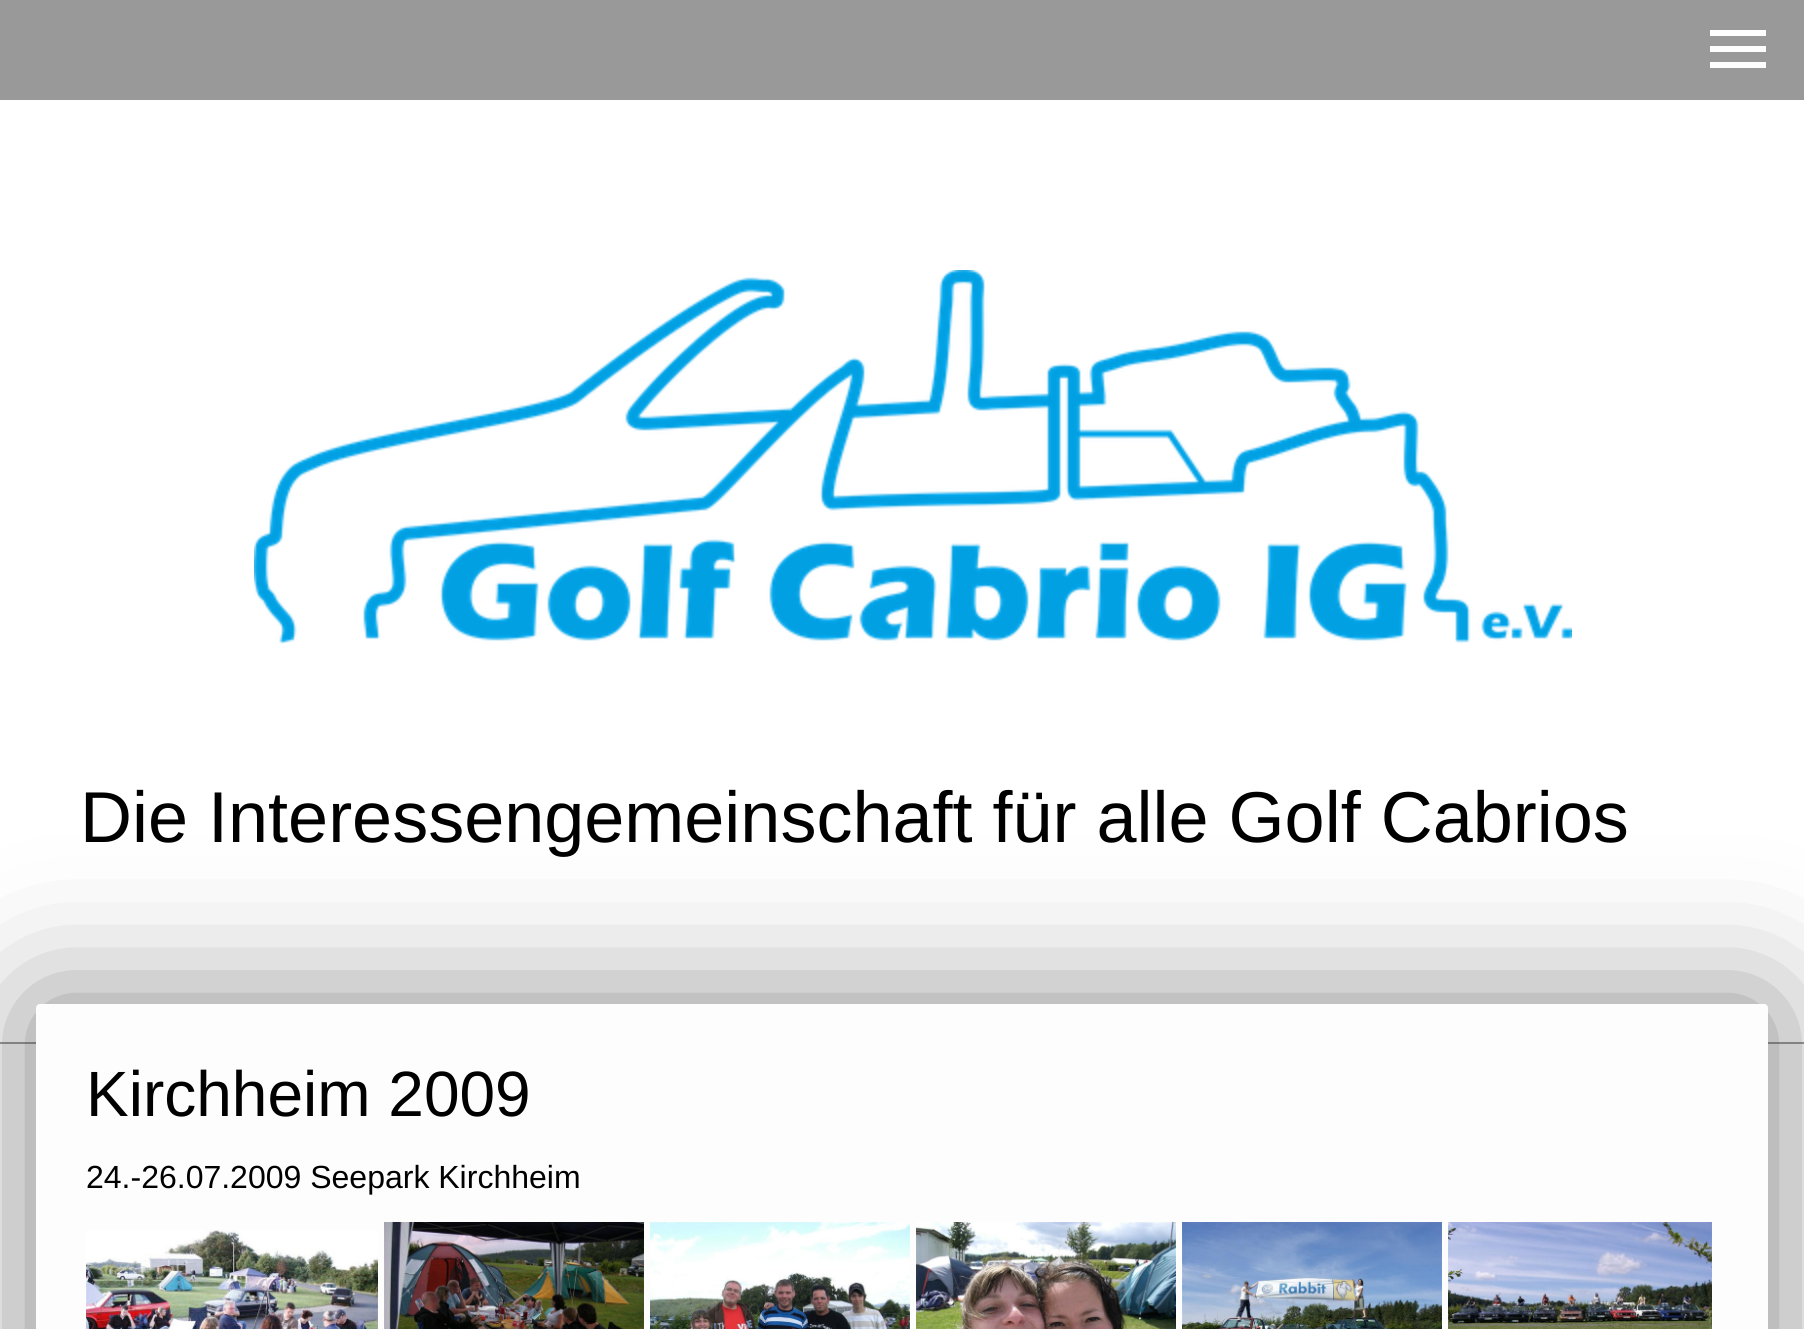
import math
import cairo


def use_color(cr, r, g, b):
  cr.set_source_rgb(r / 255, g / 255, b / 255)

def text(cr, x, y, s, family, size, color, bold=False, italic=False):
  cr.select_font_face(family, cairo.FONT_SLANT_ITALIC if italic else cairo.FONT_SLANT_NORMAL, cairo.FONT_WEIGHT_BOLD if bold else cairo.FONT_WEIGHT_NORMAL)
  cr.set_font_size(size)
  use_color(cr, *color)
  cr.move_to(x, y)
  cr.show_text(s)

def box(cr, x, y, w, h, *color):
  use_color(cr, *color)
  cr.rectangle(x, y, w, h)
  cr.fill()

def round_rect(cr, x, y, w, h, r):
  cr.new_sub_path()
  for i, (u, v) in enumerate([(x + w - r, y + h - r), (x + r, y + h - r), (x + r, y + r), (x + w - r, y + r)]):
    cr.arc(u, v, r, i * math.pi / 2, (i + 1) * math.pi / 2)
  cr.close_path()

def shadow(cr, x, y, w, h, r, blur, alpha):
  cr.push_group_with_content(cairo.CONTENT_ALPHA)
  cr.set_operator(cairo.OPERATOR_SOURCE)
  for i in range(15, -16, -2):
    e = blur * i / 6
    if min(w, h) + 2 * e > 0:
      cr.set_source_rgba(0, 0, 0, alpha * math.erfc((i - 1) / 8.5) / 2)
      round_rect(cr, x - e, y - e, w + 2 * e, h + 2 * e, max(0, min(r + e + blur * .6, min(w, h) / 2 + e)))
      cr.fill()
  cr.mask(cr.pop_group())

def picture(cr, path, x, y, w, h):
  cr.save()
  cr.set_source_surface(cairo.ImageSurface.create_from_png(path), x, y)
  cr.rectangle(x, y, w, h)
  cr.fill()
  cr.restore()

def draw(cr):
  use_color(cr, 255, 255, 255)
  cr.paint()
  box(cr, 0, 0, 1804, 100, 153, 153, 153)
  box(cr, 1710, 46, 56, 6, 253, 253, 253)
  box(cr, 1710, 30, 56, 6, 253, 253, 253)
  box(cr, 1710, 62, 56, 6, 253, 253, 253)
  picture(cr, "img_01.png", 254, 270, 1318, 375)
  box(cr, 0, 1044, 1804, 285, 250, 250, 250)
  box(cr, 0, 1042, 1804, 2, 153, 153, 153)
  use_color(cr, 51, 51, 51)
  shadow(cr, 36, 1004, 1732, 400, 0, 68, 0.6)
  use_color(cr, 253, 253, 253)
  round_rect(cr, 36, 1004, 1732, 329, 4)
  cr.fill()
  picture(cr, "img_02.png", 86, 1230, 292, 99)
  picture(cr, "img_03.png", 384, 1222, 260, 107)
  picture(cr, "img_04.png", 650, 1222, 260, 107)
  picture(cr, "img_05.png", 916, 1222, 260, 107)
  picture(cr, "img_06.png", 1182, 1222, 260, 107)
  picture(cr, "img_07.png", 1448, 1222, 264, 107)
  text(cr, 80, 842, "Die Interessengemeinschaft für alle Golf Cabrios", "Liberation Sans", 72, (0, 0, 0))
  text(cr, 86, 1116, "Kirchheim 2009", "Liberation Sans", 64, (0, 0, 0))
  text(cr, 86, 1188, "24.-26.07.2009 Seepark Kirchheim", "Liberation Sans", 32, (0, 0, 0))


surface = cairo.ImageSurface(cairo.FORMAT_RGB24, 1804, 1329)
cr = cairo.Context(surface)
options = cairo.FontOptions()
options.set_hint_metrics(cairo.HINT_METRICS_OFF)
options.set_hint_style(cairo.HINT_STYLE_NONE)
cr.set_font_options(options)
cr.set_miter_limit(4)
draw(cr)
surface.write_to_png("out.png")
